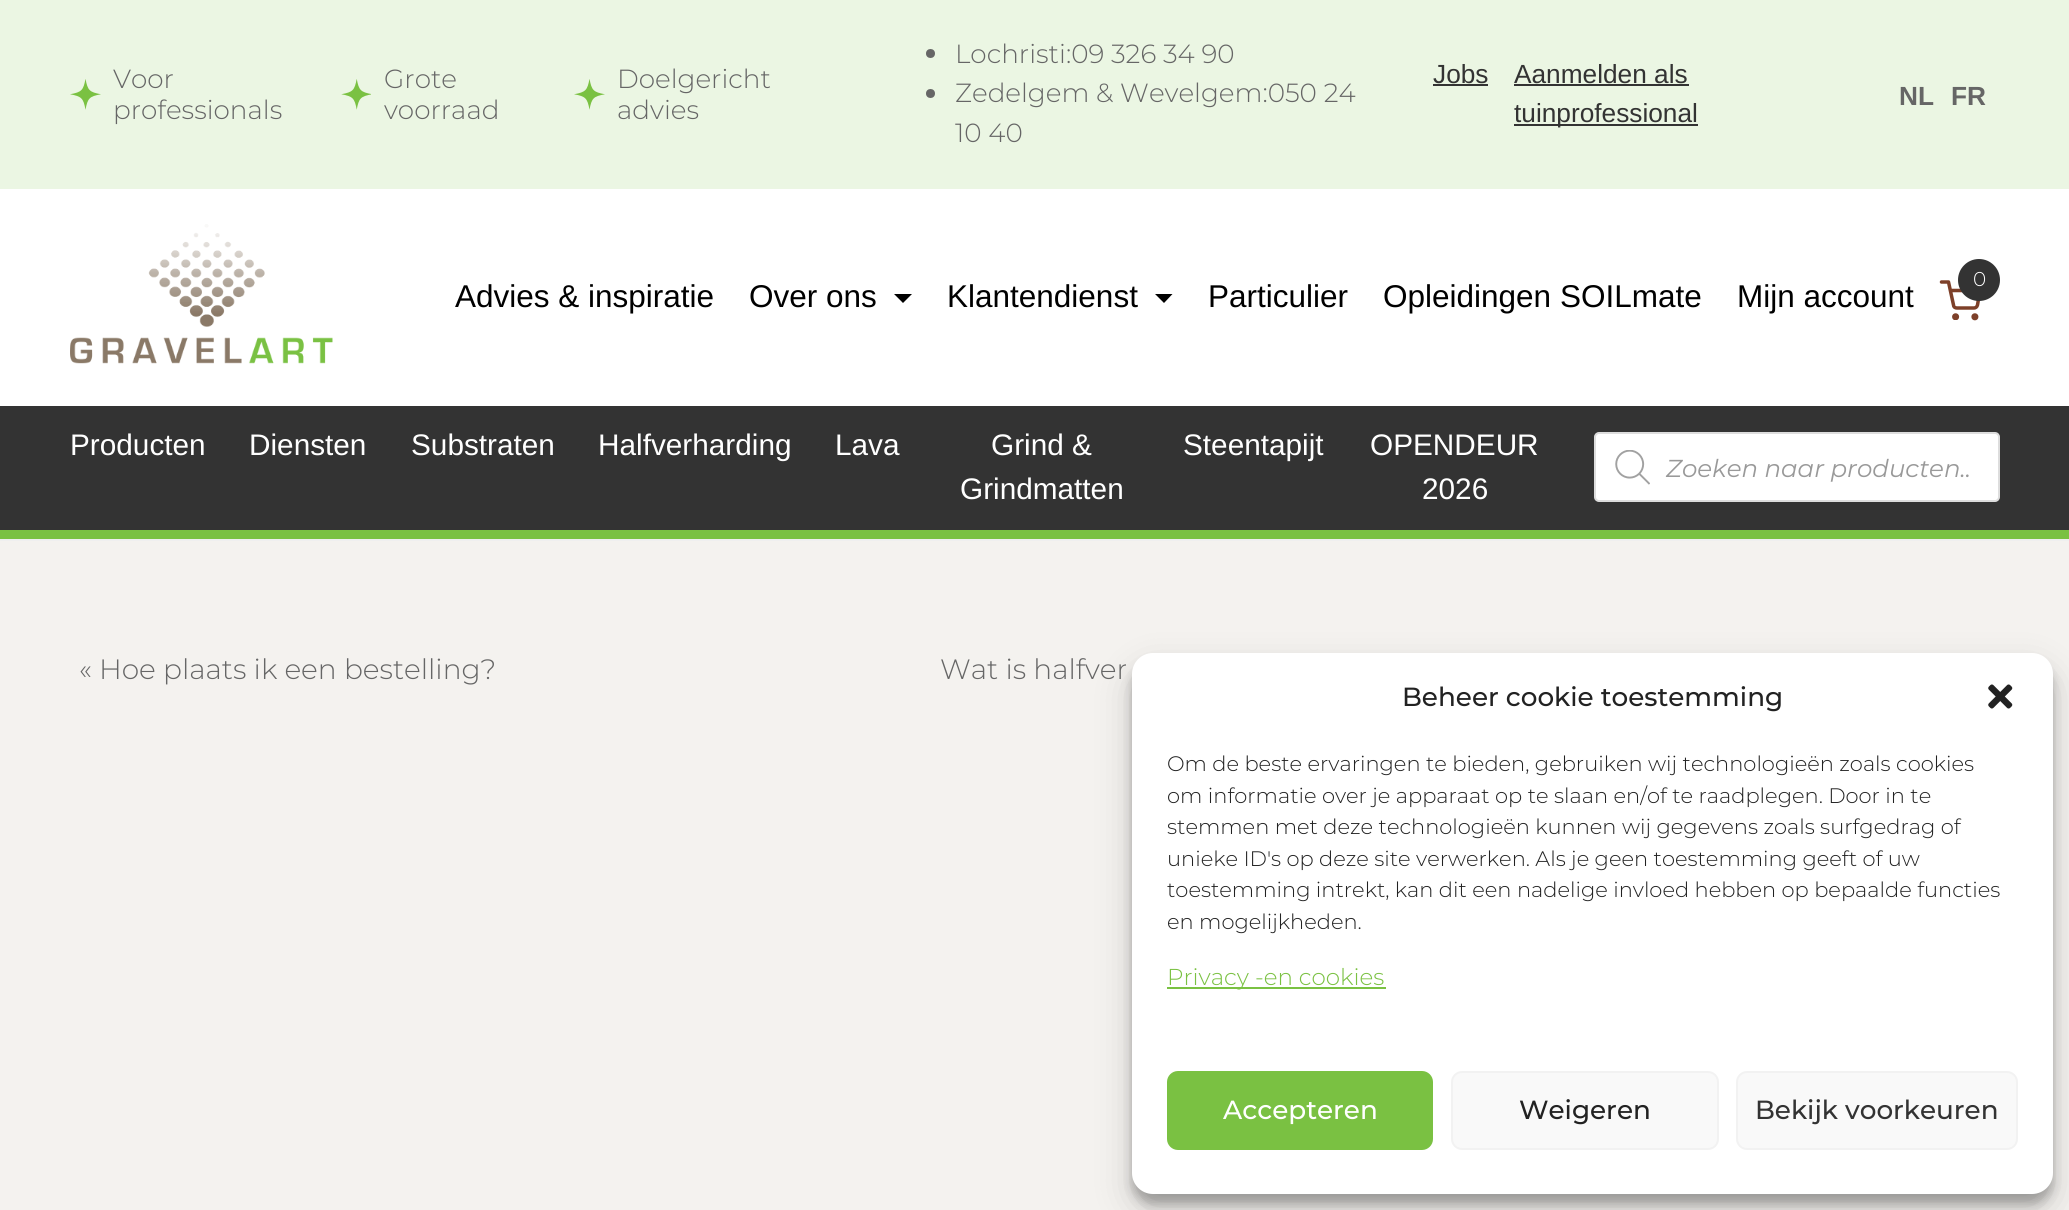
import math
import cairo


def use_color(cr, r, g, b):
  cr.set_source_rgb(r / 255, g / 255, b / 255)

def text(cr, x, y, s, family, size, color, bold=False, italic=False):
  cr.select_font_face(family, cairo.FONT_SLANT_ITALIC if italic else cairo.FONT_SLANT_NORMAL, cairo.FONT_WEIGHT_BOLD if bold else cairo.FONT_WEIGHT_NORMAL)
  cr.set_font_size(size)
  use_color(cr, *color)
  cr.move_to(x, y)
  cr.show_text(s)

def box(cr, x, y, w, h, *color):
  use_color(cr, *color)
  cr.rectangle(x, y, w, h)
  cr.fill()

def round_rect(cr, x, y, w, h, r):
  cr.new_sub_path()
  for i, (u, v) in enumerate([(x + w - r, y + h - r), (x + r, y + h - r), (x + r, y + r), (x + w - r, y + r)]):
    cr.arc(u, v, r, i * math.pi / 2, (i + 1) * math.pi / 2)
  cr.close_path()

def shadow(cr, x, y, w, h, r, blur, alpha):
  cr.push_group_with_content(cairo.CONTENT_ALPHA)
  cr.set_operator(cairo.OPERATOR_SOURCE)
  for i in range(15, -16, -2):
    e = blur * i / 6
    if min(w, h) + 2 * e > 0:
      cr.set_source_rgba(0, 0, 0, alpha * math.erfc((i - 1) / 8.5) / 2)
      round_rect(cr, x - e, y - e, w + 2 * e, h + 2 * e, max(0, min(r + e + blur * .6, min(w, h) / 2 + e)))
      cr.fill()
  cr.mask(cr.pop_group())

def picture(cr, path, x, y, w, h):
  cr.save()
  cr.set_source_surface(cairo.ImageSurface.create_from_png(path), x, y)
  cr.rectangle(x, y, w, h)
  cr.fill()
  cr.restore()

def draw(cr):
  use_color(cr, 255, 255, 255)
  cr.paint()
  box(cr, 0, 539, 2069, 2, 239, 239, 239)
  box(cr, 0, 0, 2069, 189, 235, 246, 227)
  picture(cr, "img_01.png", 70, 79, 31, 31)
  picture(cr, "img_02.png", 341, 79, 30, 31)
  picture(cr, "img_01.png", 574, 79, 31, 31)
  use_color(cr, 102, 102, 102)
  cr.arc(930.5, 53.5, 4.5, 0, 2 * math.pi)
  cr.fill()
  cr.arc(930.5, 93.5, 4.5, 0, 2 * math.pi)
  cr.fill()
  box(cr, 1433, 84, 55, 2, 51, 51, 51)
  box(cr, 1514, 84, 175, 2, 51, 51, 51)
  box(cr, 1514, 124, 184, 2, 51, 51, 51)
  picture(cr, "img_03.png", 70, 224, 263, 140)
  cr.new_path()
  cr.move_to(1941.5, 282)
  cr.line_to(1948.5, 282)
  cr.line_to(1953.5, 305)
  cr.curve_to(1953.5, 307, 1955, 308, 1957, 308)
  cr.line_to(1974, 308)
  cr.curve_to(1975.5, 308, 1977, 307, 1977.5, 305)
  cr.line_to(1980, 290.5)
  cr.line_to(1950.5, 290.5)
  use_color(cr, 125, 64, 41)
  cr.set_line_width(3.5)
  cr.set_line_cap(cairo.LINE_CAP_ROUND)
  cr.set_line_join(cairo.LINE_JOIN_ROUND)
  cr.stroke()
  use_color(cr, 51, 51, 51)
  cr.arc(1979, 280, 21, 0, 2 * math.pi)
  cr.fill()
  cr.save()
  cr.rectangle(1939, 280, 44, 40)
  cr.clip()
  cr.arc(1955.6, 316.8, 1.8, 0, 2 * math.pi)
  use_color(cr, 125, 64, 41)
  cr.set_line_cap(cairo.LINE_CAP_BUTT)
  cr.set_line_join(cairo.LINE_JOIN_MITER)
  cr.stroke()
  cr.restore()
  cr.arc(1974.9, 316.8, 1.8, 0, 2 * math.pi)
  use_color(cr, 125, 64, 41)
  cr.set_line_cap(cairo.LINE_CAP_BUTT)
  cr.set_line_join(cairo.LINE_JOIN_MITER)
  cr.stroke()
  use_color(cr, 0, 0, 0)
  cr.new_path()
  cr.move_to(894, 294)
  cr.line_to(912, 294)
  cr.line_to(903, 303)
  cr.close_path()
  cr.fill()
  cr.new_path()
  cr.move_to(1155, 294)
  cr.line_to(1172.5, 294)
  cr.line_to(1164, 303)
  cr.close_path()
  cr.fill()
  box(cr, 0, 406, 2069, 124, 51, 51, 51)
  box(cr, 0, 530, 2069, 9, 122, 193, 66)
  use_color(cr, 255, 255, 255)
  round_rect(cr, 1595, 433, 404, 68, 4)
  cr.fill_preserve()
  use_color(cr, 221, 221, 221)
  cr.set_line_width(2)
  cr.stroke()
  picture(cr, "img_04.png", 1615, 450, 35, 35)
  box(cr, 0, 541, 2069, 669, 244, 242, 239)
  use_color(cr, 0, 0, 0)
  shadow(cr, 1132, 663, 921, 541, 21, 5, 0.23)
  shadow(cr, 1132, 670, 921, 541, 21, 17.5, 0.19)
  use_color(cr, 255, 255, 255)
  round_rect(cr, 1132, 653, 921, 541, 21)
  cr.fill()
  picture(cr, "img_05.png", 1988, 684, 25, 25)
  box(cr, 1167, 987, 219, 2, 122, 193, 66)
  round_rect(cr, 1168, 1072, 264, 77, 10)
  cr.fill_preserve()
  cr.stroke()
  use_color(cr, 249, 249, 249)
  round_rect(cr, 1452, 1072, 266, 77, 10)
  cr.fill_preserve()
  use_color(cr, 242, 242, 242)
  cr.stroke()
  use_color(cr, 249, 249, 249)
  round_rect(cr, 1737, 1072, 280, 77, 10)
  cr.fill_preserve()
  use_color(cr, 242, 242, 242)
  cr.stroke()
  text(cr, 113, 88, "Voor", "Montserrat Light", 26.25, (102, 102, 102))
  text(cr, 113, 119, "professionals", "Montserrat Light", 26.25, (102, 102, 102))
  text(cr, 384, 88, "Grote", "Montserrat Light", 26.25, (102, 102, 102))
  text(cr, 384, 119, "voorraad", "Montserrat Light", 26.25, (102, 102, 102))
  text(cr, 617, 88, "Doelgericht", "Montserrat Light", 26.25, (102, 102, 102))
  text(cr, 617, 119, "advies", "Montserrat Light", 26.25, (102, 102, 102))
  text(cr, 955, 63, "Lochristi:09 326 34 90", "Montserrat Light", 26.25, (102, 102, 102))
  text(cr, 955, 102, "Zedelgem & Wevelgem:050 24", "Montserrat Light", 26.25, (102, 102, 102))
  text(cr, 955, 142, "10 40", "Montserrat Light", 26.25, (102, 102, 102))
  text(cr, 1433, 83, "Jobs", "Liberation Sans", 26.25, (51, 51, 51))
  text(cr, 1514, 83, "Aanmelden als", "Liberation Sans", 26.25, (51, 51, 51))
  text(cr, 1514, 122, "tuinprofessional", "Liberation Sans", 26.25, (51, 51, 51))
  text(cr, 1899, 105, "NL", "Liberation Sans", 26.25, (102, 102, 102), bold=True)
  text(cr, 1951, 105, "FR", "Liberation Sans", 26.25, (102, 102, 102), bold=True)
  text(cr, 1973, 286, "0", "Montserrat Light", 20, (255, 255, 255))
  text(cr, 455, 307, "Advies & inspiratie", "Liberation Sans", 31.5, (0, 0, 0))
  text(cr, 749, 307, "Over ons", "Liberation Sans", 31.5, (0, 0, 0))
  text(cr, 947, 307, "Klantendienst", "Liberation Sans", 31.5, (0, 0, 0))
  text(cr, 1208, 307, "Particulier", "Liberation Sans", 31.5, (0, 0, 0))
  text(cr, 1383, 307, "Opleidingen SOILmate", "Liberation Sans", 31.5, (0, 0, 0))
  text(cr, 1737, 307, "Mijn account", "Liberation Sans", 31.5, (0, 0, 0))
  text(cr, 70, 455, "Producten", "Liberation Sans", 29.75, (255, 255, 255))
  text(cr, 249, 455, "Diensten", "Liberation Sans", 29.75, (255, 255, 255))
  text(cr, 411, 455, "Substraten", "Liberation Sans", 29.75, (255, 255, 255))
  text(cr, 598, 455, "Halfverharding", "Liberation Sans", 29.75, (255, 255, 255))
  text(cr, 835, 455, "Lava", "Liberation Sans", 29.75, (255, 255, 255))
  text(cr, 991, 455, "Grind &", "Liberation Sans", 29.75, (255, 255, 255))
  text(cr, 960, 499, "Grindmatten", "Liberation Sans", 29.75, (255, 255, 255))
  text(cr, 1183, 455, "Steentapijt", "Liberation Sans", 29.75, (255, 255, 255))
  text(cr, 1370, 455, "OPENDEUR", "Liberation Sans", 29.75, (255, 255, 255))
  text(cr, 1422, 499, "2026", "Liberation Sans", 29.75, (255, 255, 255))
  text(cr, 1666, 477, "Zoeken naar producten..", "Montserrat", 24.5, (153, 153, 153), italic=True)
  text(cr, 79, 679, "« Hoe plaats ik een bestelling?", "Montserrat Light", 28, (102, 102, 102))
  text(cr, 940, 679, "Wat is halfver", "Montserrat Light", 28, (102, 102, 102))
  text(cr, 1402, 706, "Beheer cookie toestemming", "Montserrat Medium", 26.25, (34, 34, 34))
  text(cr, 1167, 771, "Om de beste ervaringen te bieden, gebruiken wij technologieën zoals cookies", "Montserrat Light", 21, (34, 34, 34))
  text(cr, 1167, 803, "om informatie over je apparaat op te slaan en/of te raadplegen. Door in te", "Montserrat Light", 21, (34, 34, 34))
  text(cr, 1167, 834, "stemmen met deze technologieën kunnen wij gegevens zoals surfgedrag of", "Montserrat Light", 21, (34, 34, 34))
  text(cr, 1167, 866, "unieke ID's op deze site verwerken. Als je geen toestemming geeft of uw", "Montserrat Light", 21, (34, 34, 34))
  text(cr, 1167, 897, "toestemming intrekt, kan dit een nadelige invloed hebben op bepaalde functies", "Montserrat Light", 21, (34, 34, 34))
  text(cr, 1167, 929, "en mogelijkheden.", "Montserrat Light", 21, (34, 34, 34))
  text(cr, 1167, 985, "Privacy -en cookies", "Montserrat Light", 23, (122, 193, 66))
  text(cr, 1223, 1119, "Accepteren", "Montserrat Medium", 26.25, (255, 255, 255))
  text(cr, 1519, 1119, "Weigeren", "Montserrat Medium", 26.25, (34, 34, 34))
  text(cr, 1755, 1119, "Bekijk voorkeuren", "Montserrat Medium", 26.25, (51, 51, 51))


surface = cairo.ImageSurface(cairo.FORMAT_RGB24, 2069, 1210)
cr = cairo.Context(surface)
options = cairo.FontOptions()
options.set_hint_metrics(cairo.HINT_METRICS_OFF)
options.set_hint_style(cairo.HINT_STYLE_NONE)
cr.set_font_options(options)
cr.set_miter_limit(4)
draw(cr)
surface.write_to_png("out.png")
